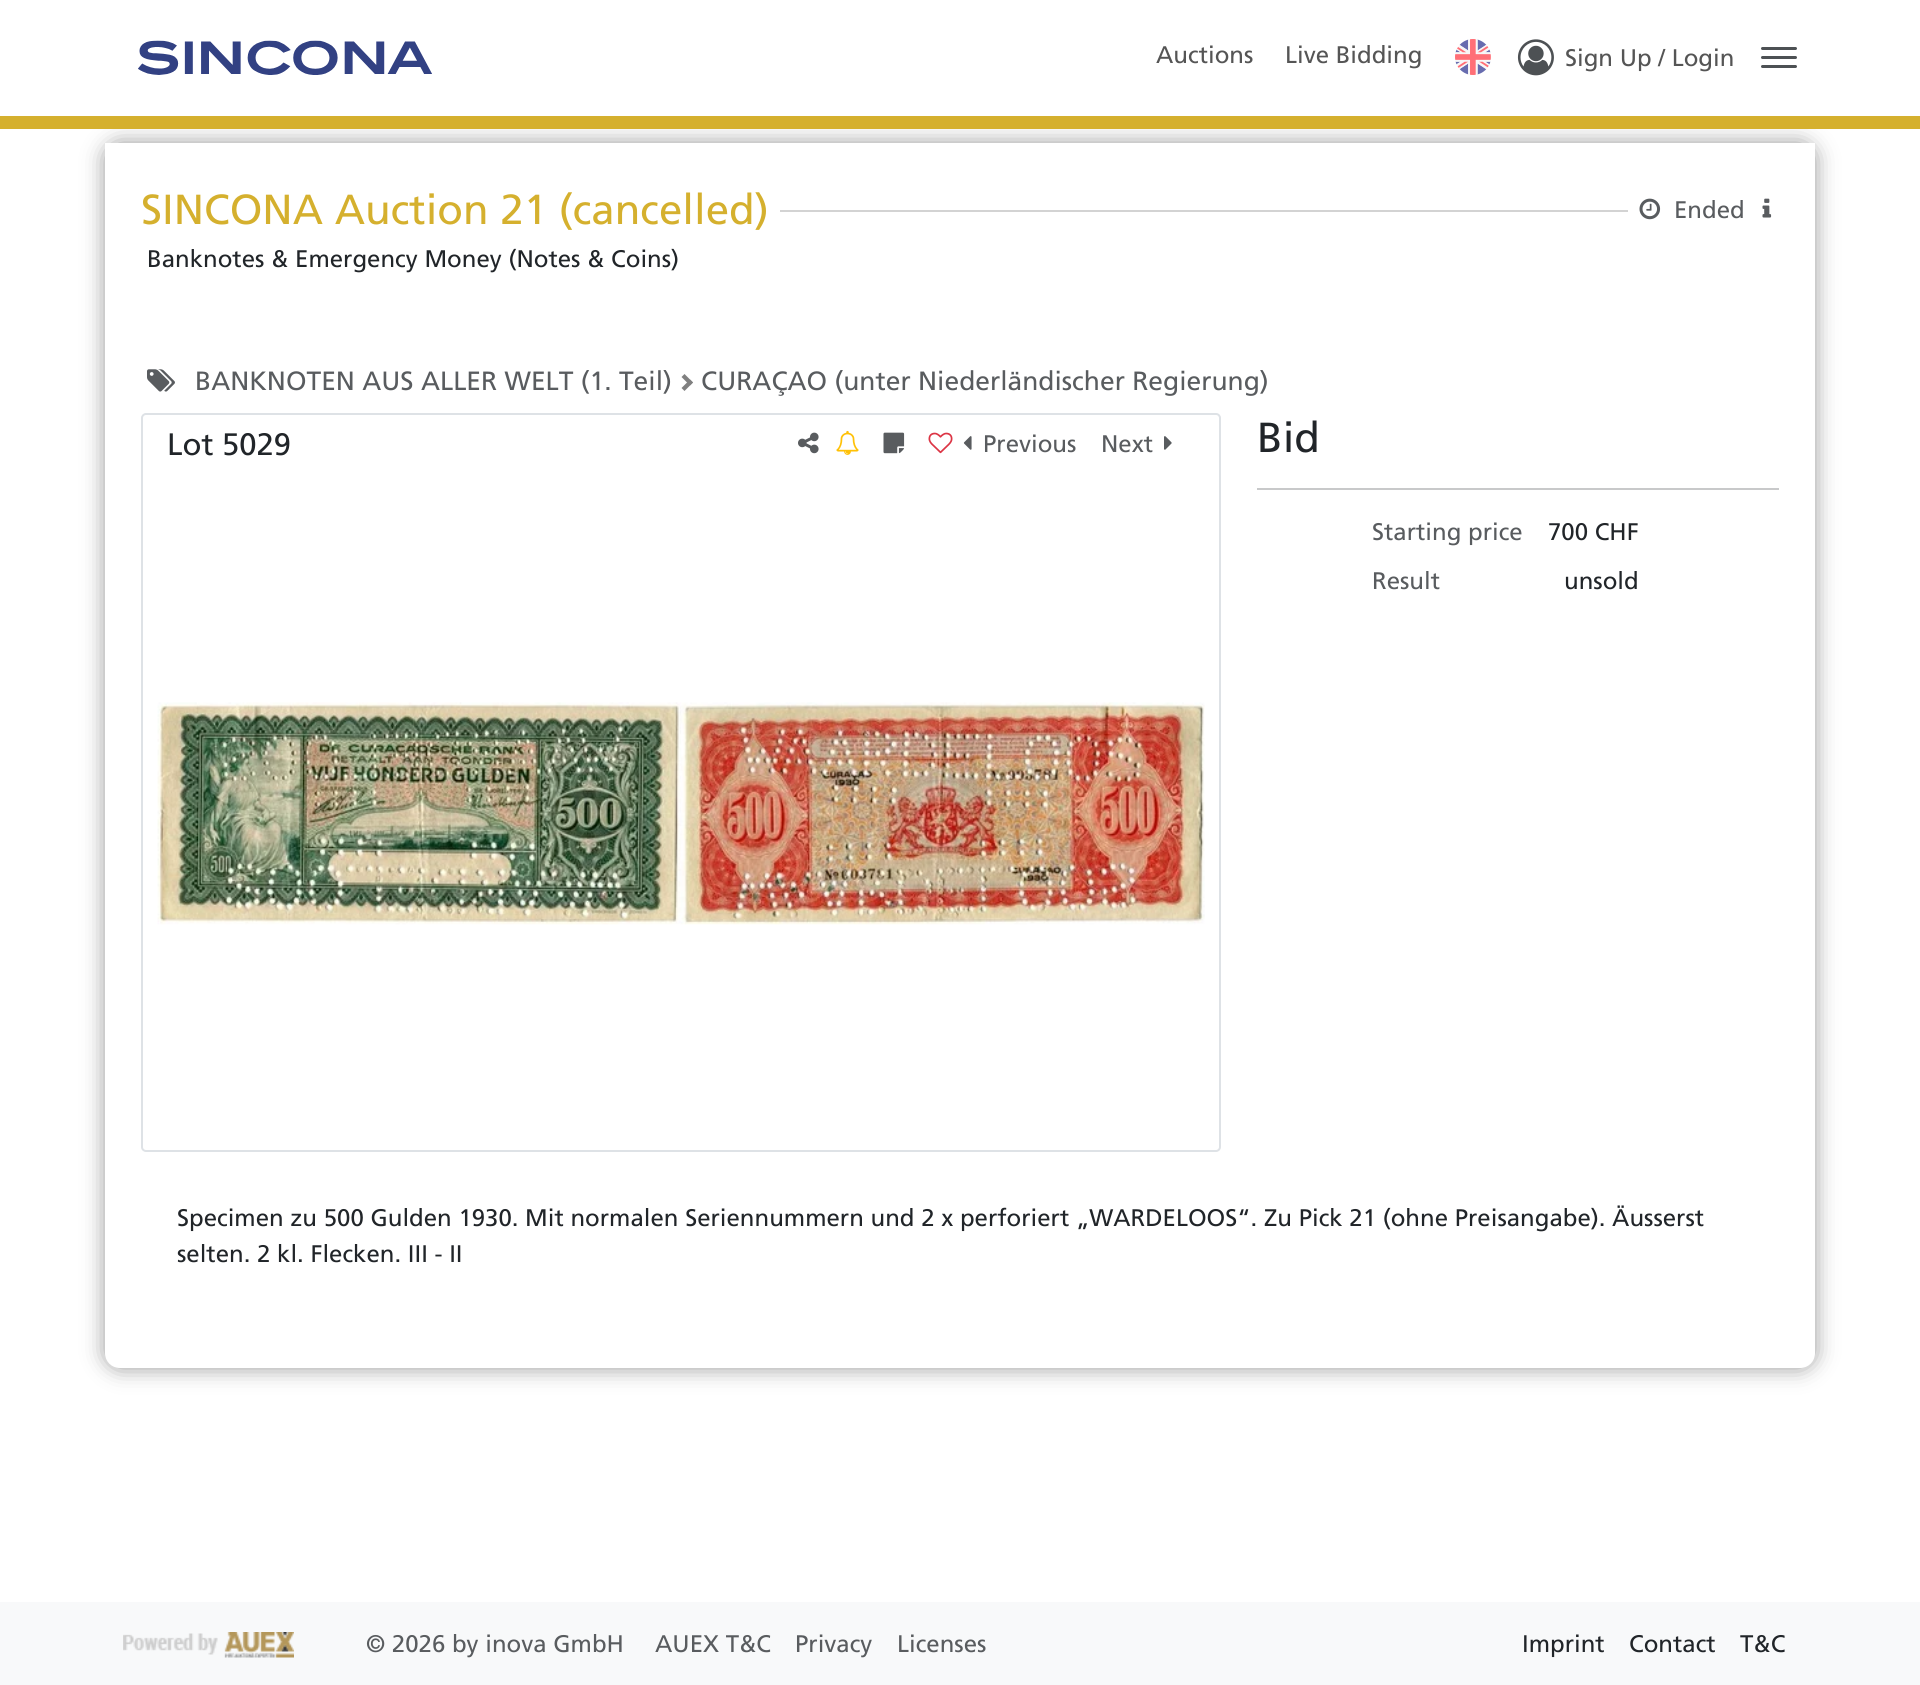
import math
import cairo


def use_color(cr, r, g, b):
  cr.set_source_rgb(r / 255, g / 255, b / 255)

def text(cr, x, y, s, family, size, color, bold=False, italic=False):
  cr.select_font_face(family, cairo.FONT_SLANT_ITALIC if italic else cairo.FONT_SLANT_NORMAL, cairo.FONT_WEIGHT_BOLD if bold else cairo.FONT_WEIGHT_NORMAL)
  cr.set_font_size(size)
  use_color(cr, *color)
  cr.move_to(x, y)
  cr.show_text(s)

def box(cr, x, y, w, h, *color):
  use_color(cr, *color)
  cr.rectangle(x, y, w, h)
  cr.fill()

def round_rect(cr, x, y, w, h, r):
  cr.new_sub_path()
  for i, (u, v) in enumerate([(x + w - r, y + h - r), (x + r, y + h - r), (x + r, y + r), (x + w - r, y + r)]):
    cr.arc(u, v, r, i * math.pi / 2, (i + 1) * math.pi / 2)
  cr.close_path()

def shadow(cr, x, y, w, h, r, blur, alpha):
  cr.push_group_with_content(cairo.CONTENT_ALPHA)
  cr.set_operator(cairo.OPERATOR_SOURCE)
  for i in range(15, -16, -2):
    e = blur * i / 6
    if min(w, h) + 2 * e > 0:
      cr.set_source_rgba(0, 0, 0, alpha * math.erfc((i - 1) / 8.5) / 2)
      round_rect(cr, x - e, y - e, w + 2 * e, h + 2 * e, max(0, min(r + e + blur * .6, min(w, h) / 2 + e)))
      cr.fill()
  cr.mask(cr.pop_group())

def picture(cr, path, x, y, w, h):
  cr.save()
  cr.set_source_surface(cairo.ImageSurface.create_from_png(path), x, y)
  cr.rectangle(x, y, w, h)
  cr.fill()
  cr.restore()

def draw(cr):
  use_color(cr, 255, 255, 255)
  cr.paint()
  picture(cr, "img_01.png", 138, 40, 294, 35)
  picture(cr, "img_02.png", 1455, 39, 36, 36)
  picture(cr, "img_03.png", 1517, 39, 37, 37)
  use_color(cr, 77, 81, 84)
  round_rect(cr, 1761, 47, 36, 3, 1.5)
  cr.fill()
  round_rect(cr, 1761, 56, 36, 3, 1.5)
  cr.fill()
  round_rect(cr, 1761, 65, 36, 3, 1.5)
  cr.fill()
  use_color(cr, 153, 153, 153)
  shadow(cr, 105, 143, 1710, 1225, 15, 11, 1)
  box(cr, 0, 116, 1920, 13, 213, 176, 46)
  use_color(cr, 255, 255, 255)
  cr.new_path()
  cr.move_to(105, 143)
  cr.line_to(1815, 143)
  cr.line_to(1815, 1353)
  cr.curve_to(1815, 1361.5, 1808.5, 1368, 1800, 1368)
  cr.line_to(120, 1368)
  cr.curve_to(111.5, 1368, 105, 1361.5, 105, 1353)
  cr.close_path()
  cr.fill()
  box(cr, 780, 210, 848, 2, 211, 211, 211)
  picture(cr, "img_04.png", 1639, 198, 22, 22)
  picture(cr, "img_05.png", 1762, 198, 10, 20)
  picture(cr, "img_06.png", 147, 369, 28, 23)
  use_color(cr, 128, 128, 128)
  cr.new_path()
  cr.move_to(681.5, 377)
  cr.line_to(684.5, 374)
  cr.line_to(693, 382.5)
  cr.line_to(690, 385.5)
  cr.close_path()
  cr.fill()
  cr.new_path()
  cr.move_to(681.5, 388)
  cr.line_to(690, 379.5)
  cr.line_to(693, 382.5)
  cr.line_to(684.5, 391)
  cr.close_path()
  cr.fill()
  round_rect(cr, 142, 414, 1078, 737, 4)
  use_color(cr, 222, 226, 230)
  cr.stroke()
  picture(cr, "img_07.png", 798, 432, 21, 22)
  picture(cr, "img_08.png", 836, 430, 23, 25)
  picture(cr, "img_09.png", 883, 432, 22, 22)
  picture(cr, "img_10.png", 928, 432, 25, 22)
  picture(cr, "img_11.png", 963, 436, 9, 14)
  picture(cr, "img_12.png", 1164, 436, 8, 14)
  picture(cr, "img_13.png", 157, 702, 1048, 223)
  box(cr, 1257, 488, 522, 2, 200, 201, 202)
  box(cr, 0, 1602, 1920, 83, 248, 249, 250)
  picture(cr, "img_14.png", 123, 1632, 171, 26)
  text(cr, 1156, 63, "Auctions", "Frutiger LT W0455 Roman", 24, (85, 85, 85))
  text(cr, 1285, 63, "Live Bidding", "Frutiger LT W0455 Roman", 24, (85, 85, 85))
  text(cr, 1565, 66, "Sign Up / Login", "Frutiger LT W0455 Roman", 24, (85, 85, 85))
  text(cr, 141, 224, "SINCONA Auction 21 (cancelled)", "Frutiger LT W0455 Roman", 42, (213, 176, 46))
  text(cr, 1674, 218, "Ended", "Frutiger LT W0455 Roman", 24, (89, 92, 95))
  text(cr, 147, 267, "Banknotes & Emergency Money (Notes & Coins)", "Frutiger LT W0455 Roman", 24, (33, 37, 41))
  text(cr, 195, 390, "BANKNOTEN AUS ALLER WELT (1. Teil)", "Frutiger LT W0455 Roman", 26.4, (89, 92, 95))
  text(cr, 701, 390, "CURAÇAO (unter Niederländischer Regierung)", "Frutiger LT W0455 Roman", 26.4, (89, 92, 95))
  text(cr, 167, 455, "Lot 5029", "Frutiger LT W0455 Roman", 31, (33, 37, 41))
  text(cr, 983, 452, "Previous", "Frutiger LT W0455 Roman", 24, (89, 92, 95))
  text(cr, 1101, 452, "Next", "Frutiger LT W0455 Roman", 24, (89, 92, 95))
  text(cr, 1257, 452, "Bid", "Frutiger LT W0455 Roman", 42, (33, 37, 41))
  text(cr, 1372, 540, "Starting price", "Frutiger LT W0455 Roman", 24, (89, 92, 95))
  text(cr, 1548, 540, "700 CHF", "Frutiger LT W0455 Roman", 24, (33, 37, 41))
  text(cr, 1372, 589, "Result", "Frutiger LT W0455 Roman", 24, (89, 92, 95))
  text(cr, 1564, 589, "unsold", "Frutiger LT W0455 Roman", 24, (33, 37, 41))
  text(cr, 177, 1226, "Specimen zu 500 Gulden 1930. Mit normalen Seriennummern und 2 x perforiert „WARDELOOS“. Zu Pick 21 (ohne Preisangabe). Äusserst", "Frutiger LT W0455 Roman", 24, (33, 37, 41))
  text(cr, 177, 1262, "selten. 2 kl. Flecken. III - II", "Frutiger LT W0455 Roman", 24, (33, 37, 41))
  text(cr, 366, 1652, "© 2026 by inova GmbH", "Frutiger LT W0455 Roman", 24, (89, 92, 95))
  text(cr, 655, 1652, "AUEX T&C", "Frutiger LT W0455 Roman", 24, (89, 92, 95))
  text(cr, 795, 1652, "Privacy", "Frutiger LT W0455 Roman", 24, (89, 92, 95))
  text(cr, 897, 1652, "Licenses", "Frutiger LT W0455 Roman", 24, (89, 92, 95))
  text(cr, 1522, 1652, "Imprint", "Frutiger LT W0455 Roman", 24, (33, 37, 41))
  text(cr, 1629, 1652, "Contact", "Frutiger LT W0455 Roman", 24, (33, 37, 41))
  text(cr, 1740, 1652, "T&C", "Frutiger LT W0455 Roman", 24, (33, 37, 41))


surface = cairo.ImageSurface(cairo.FORMAT_RGB24, 1920, 1685)
cr = cairo.Context(surface)
options = cairo.FontOptions()
options.set_hint_metrics(cairo.HINT_METRICS_OFF)
options.set_hint_style(cairo.HINT_STYLE_NONE)
cr.set_font_options(options)
cr.set_miter_limit(4)
draw(cr)
surface.write_to_png("out.png")
